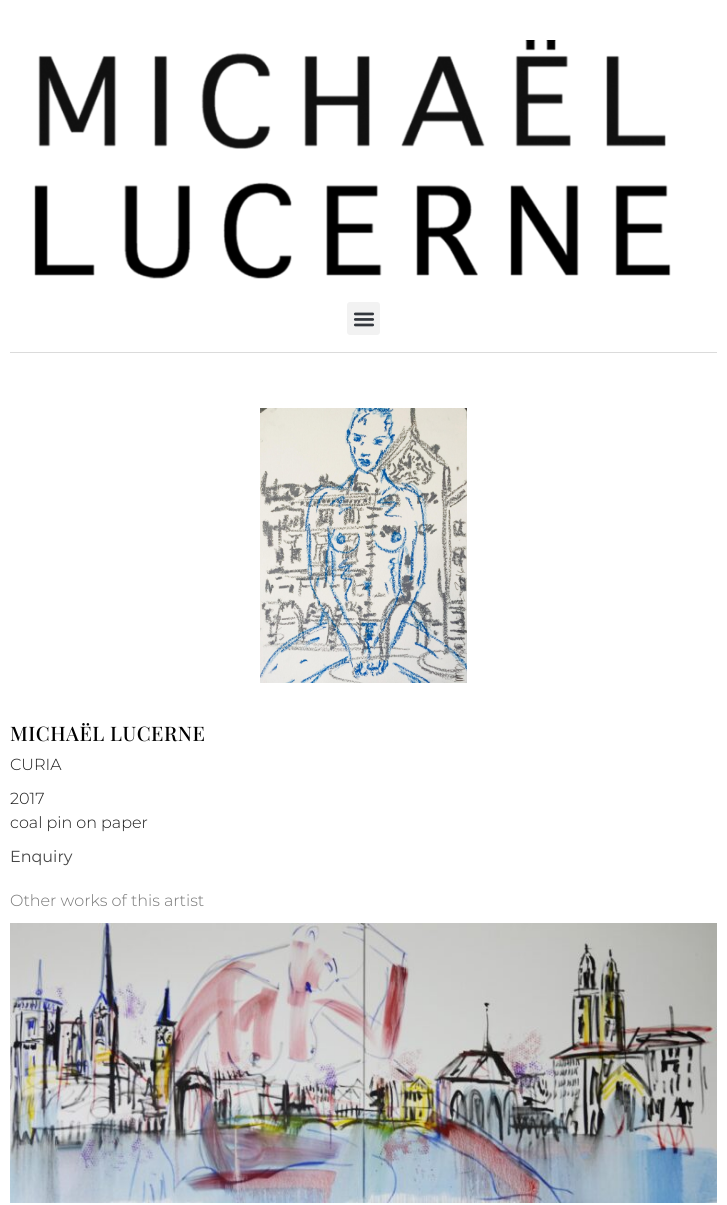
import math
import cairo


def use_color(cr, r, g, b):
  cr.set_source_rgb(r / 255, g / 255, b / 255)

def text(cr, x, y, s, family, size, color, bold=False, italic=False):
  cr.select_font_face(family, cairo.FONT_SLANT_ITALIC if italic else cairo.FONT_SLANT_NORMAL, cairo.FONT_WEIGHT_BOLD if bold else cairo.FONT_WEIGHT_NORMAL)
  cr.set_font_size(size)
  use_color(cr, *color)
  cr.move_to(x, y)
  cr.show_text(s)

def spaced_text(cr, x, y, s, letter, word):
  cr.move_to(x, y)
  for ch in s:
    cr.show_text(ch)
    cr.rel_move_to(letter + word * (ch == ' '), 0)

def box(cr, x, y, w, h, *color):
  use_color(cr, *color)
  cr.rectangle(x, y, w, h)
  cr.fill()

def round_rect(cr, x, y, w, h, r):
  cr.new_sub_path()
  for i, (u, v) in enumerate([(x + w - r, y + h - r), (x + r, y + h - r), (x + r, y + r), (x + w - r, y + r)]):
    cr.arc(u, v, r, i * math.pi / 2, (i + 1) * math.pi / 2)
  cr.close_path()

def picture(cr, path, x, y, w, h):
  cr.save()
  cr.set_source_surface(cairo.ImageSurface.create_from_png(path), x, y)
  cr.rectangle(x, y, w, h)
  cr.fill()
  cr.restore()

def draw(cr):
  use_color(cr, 255, 255, 255)
  cr.paint()
  picture(cr, "img_01.png", 34, 40, 637, 239)
  use_color(cr, 242, 242, 242)
  round_rect(cr, 347, 302, 33, 33, 3)
  cr.fill()
  picture(cr, "img_02.png", 353, 312, 22, 15)
  box(cr, 10, 352, 707, 1, 219, 219, 219)
  picture(cr, "img_03.png", 260, 408, 207, 275)
  picture(cr, "img_04.png", 10, 923, 707, 280)
  cr.select_font_face("Playfair Display Medium")
  cr.set_font_size(20)
  use_color(cr, 0, 0, 0)
  spaced_text(cr, 10, 741, "MICHAËL LUCERNE", 0.5, 0)
  text(cr, 10, 770, "CURIA", "Montserrat Light", 16, (24, 24, 24))
  text(cr, 10, 804, "2017", "Montserrat Light", 16, (24, 24, 24))
  text(cr, 10, 828, "coal pin on paper", "Montserrat Light", 16, (24, 24, 24))
  text(cr, 10, 862, "Enquiry", "Montserrat", 16, (71, 71, 71))
  text(cr, 10, 906, "Other works of this artist", "Montserrat Light", 16, (117, 117, 117))


surface = cairo.ImageSurface(cairo.FORMAT_RGB24, 727, 1205)
cr = cairo.Context(surface)
options = cairo.FontOptions()
options.set_hint_metrics(cairo.HINT_METRICS_OFF)
options.set_hint_style(cairo.HINT_STYLE_NONE)
cr.set_font_options(options)
cr.set_miter_limit(4)
draw(cr)
surface.write_to_png("out.png")
